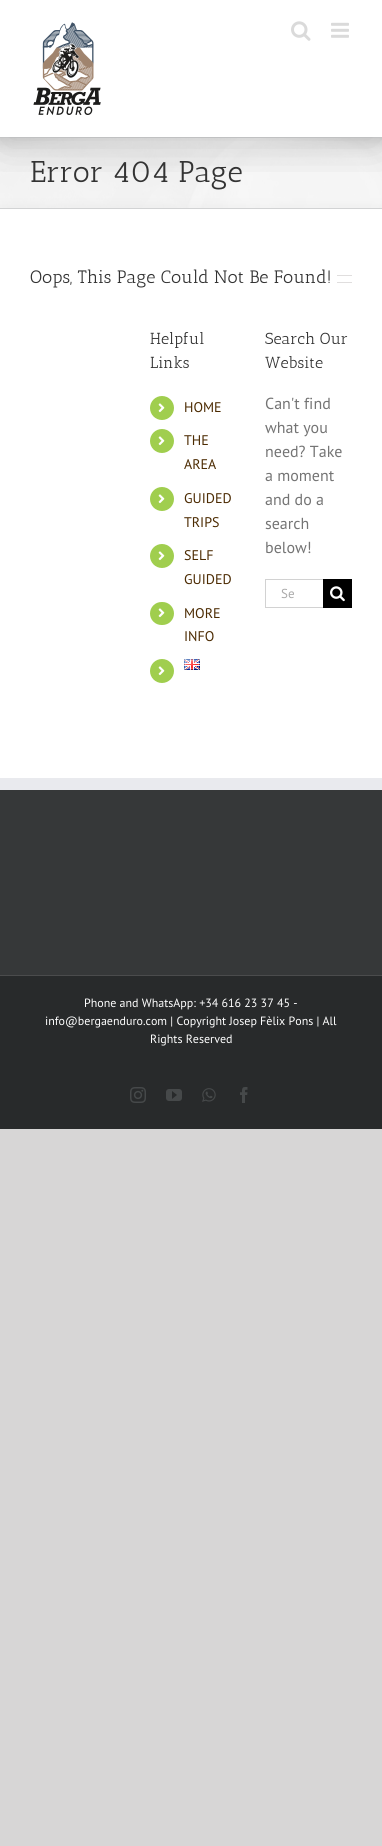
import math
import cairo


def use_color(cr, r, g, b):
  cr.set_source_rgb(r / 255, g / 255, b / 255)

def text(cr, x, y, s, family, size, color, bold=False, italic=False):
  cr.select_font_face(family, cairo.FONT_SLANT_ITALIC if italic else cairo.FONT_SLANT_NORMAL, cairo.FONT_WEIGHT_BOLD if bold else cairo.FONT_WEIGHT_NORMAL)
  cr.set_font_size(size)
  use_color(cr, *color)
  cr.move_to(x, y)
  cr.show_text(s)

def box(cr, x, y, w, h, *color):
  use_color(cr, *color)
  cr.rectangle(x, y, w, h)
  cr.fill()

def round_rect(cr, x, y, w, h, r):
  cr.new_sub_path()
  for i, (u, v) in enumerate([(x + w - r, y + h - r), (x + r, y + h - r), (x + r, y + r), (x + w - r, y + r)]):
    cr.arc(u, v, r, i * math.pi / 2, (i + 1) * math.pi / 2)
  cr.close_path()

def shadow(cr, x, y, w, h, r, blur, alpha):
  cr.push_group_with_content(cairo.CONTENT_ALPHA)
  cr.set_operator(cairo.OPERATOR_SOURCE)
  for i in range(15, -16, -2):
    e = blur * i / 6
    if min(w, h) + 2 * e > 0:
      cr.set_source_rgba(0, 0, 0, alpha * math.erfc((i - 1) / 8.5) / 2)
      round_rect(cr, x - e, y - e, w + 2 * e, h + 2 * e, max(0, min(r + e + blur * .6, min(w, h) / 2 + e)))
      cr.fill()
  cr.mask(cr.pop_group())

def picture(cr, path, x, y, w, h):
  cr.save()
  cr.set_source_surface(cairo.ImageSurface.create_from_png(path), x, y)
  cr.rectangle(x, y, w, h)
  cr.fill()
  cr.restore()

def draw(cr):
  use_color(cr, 215, 214, 214)
  cr.paint()
  box(cr, 0, 0, 382, 778, 255, 255, 255)
  box(cr, 0, 138, 382, 70, 246, 246, 246)
  picture(cr, "img_04.png", 0, 138, 382, 70)
  box(cr, 0, 137, 382, 1, 210, 211, 212)
  box(cr, 0, 208, 382, 1, 210, 211, 212)
  cr.save()
  cr.rectangle(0, 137, 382, 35)
  cr.clip()
  use_color(cr, 0, 0, 0)
  shadow(cr, 2, 12, 378, 133, 0, 25, 0.14)
  cr.restore()
  picture(cr, "img_01.png", 33, 22, 68, 93)
  picture(cr, "img_02.png", 291, 21, 20, 20)
  picture(cr, "img_03.png", 331, 22, 18, 16)
  box(cr, 337, 275, 15, 1, 224, 222, 222)
  box(cr, 337, 282, 15, 1, 224, 222, 222)
  use_color(cr, 160, 206, 78)
  cr.arc(162, 408, 12, 0, 2 * math.pi)
  cr.fill()
  picture(cr, "img_05.png", 158, 403, 7, 10)
  cr.arc(162, 441, 12, 0, 2 * math.pi)
  cr.fill()
  picture(cr, "img_05.png", 158, 436, 7, 10)
  cr.arc(162, 499, 12, 0, 2 * math.pi)
  cr.fill()
  picture(cr, "img_05.png", 158, 494, 7, 10)
  cr.arc(162, 556, 12, 0, 2 * math.pi)
  cr.fill()
  picture(cr, "img_05.png", 158, 551, 7, 10)
  round_rect(cr, 150, 602, 24, 23, 11.5)
  cr.fill()
  picture(cr, "img_05.png", 158, 608, 7, 10)
  cr.arc(162, 671, 12, 0, 2 * math.pi)
  cr.fill()
  picture(cr, "img_05.png", 158, 666, 7, 10)
  picture(cr, "img_06.png", 184, 659, 16, 11)
  box(cr, 265, 579, 58, 1, 210, 210, 210)
  box(cr, 265, 607, 58, 1, 210, 210, 210)
  box(cr, 265, 579, 1, 29, 210, 210, 210)
  box(cr, 323, 579, 29, 29, 0, 0, 0)
  picture(cr, "img_07.png", 330, 586, 15, 16)
  box(cr, 0, 790, 382, 185, 54, 56, 57)
  box(cr, 0, 778, 382, 12, 233, 234, 238)
  box(cr, 0, 976, 382, 153, 40, 42, 43)
  box(cr, 0, 975, 382, 1, 75, 76, 77)
  picture(cr, "img_08.png", 130, 1087, 16, 16)
  picture(cr, "img_09.png", 166, 1089, 16, 12)
  picture(cr, "img_10.png", 202, 1088, 14, 14)
  picture(cr, "img_11.png", 240, 1087, 8, 16)
  text(cr, 30, 182, "Error 404 Page", "Antic Slab", 30, (51, 51, 51))
  text(cr, 30, 283, "Oops, This Page Could Not Be Found!", "Antic Slab", 18, (51, 51, 51))
  text(cr, 150, 344, "Helpful", "Antic Slab", 16, (51, 51, 51))
  text(cr, 150, 368, "Links", "Antic Slab", 16, (51, 51, 51))
  text(cr, 184, 412, "HOME", "PT Sans", 14, (76, 43, 2))
  text(cr, 184, 445, "THE", "PT Sans", 14, (76, 43, 2))
  text(cr, 184, 469, "AREA", "PT Sans", 14, (76, 43, 2))
  text(cr, 184, 503, "GUIDED", "PT Sans", 14, (76, 43, 2))
  text(cr, 184, 527, "TRIPS", "PT Sans", 14, (76, 43, 2))
  text(cr, 184, 560, "SELF", "PT Sans", 14, (76, 43, 2))
  text(cr, 184, 584, "GUIDED", "PT Sans", 14, (76, 43, 2))
  text(cr, 184, 618, "MORE", "PT Sans", 14, (76, 43, 2))
  text(cr, 184, 641, "INFO", "PT Sans", 14, (76, 43, 2))
  text(cr, 265, 344, "Search Our", "Antic Slab", 16, (51, 51, 51))
  text(cr, 265, 368, "Website", "Antic Slab", 16, (51, 51, 51))
  text(cr, 265, 409, "Can't find", "PT Sans", 16, (116, 116, 116))
  text(cr, 265, 433, "what you", "PT Sans", 16, (116, 116, 116))
  text(cr, 265, 457, "need? Take", "PT Sans", 16, (116, 116, 116))
  text(cr, 265, 481, "a moment", "PT Sans", 16, (116, 116, 116))
  text(cr, 265, 505, "and do a", "PT Sans", 16, (116, 116, 116))
  text(cr, 265, 529, "search", "PT Sans", 16, (116, 116, 116))
  text(cr, 265, 553, "below!", "PT Sans", 16, (116, 116, 116))
  text(cr, 281, 598, "Se", "PT Sans", 13, (170, 169, 169))
  text(cr, 84, 1007, "Phone and WhatsApp: +34 616 23 37 45 -", "PT Sans", 12, (255, 255, 255))
  text(cr, 45, 1025, "info@bergaenduro.com | Copyright Josep Fèlix Pons | All", "PT Sans", 12, (255, 255, 255))
  text(cr, 150, 1043, "Rights Reserved", "PT Sans", 12, (255, 255, 255))


surface = cairo.ImageSurface(cairo.FORMAT_RGB24, 382, 1846)
cr = cairo.Context(surface)
options = cairo.FontOptions()
options.set_hint_metrics(cairo.HINT_METRICS_OFF)
options.set_hint_style(cairo.HINT_STYLE_NONE)
cr.set_font_options(options)
cr.set_miter_limit(4)
draw(cr)
surface.write_to_png("out.png")
